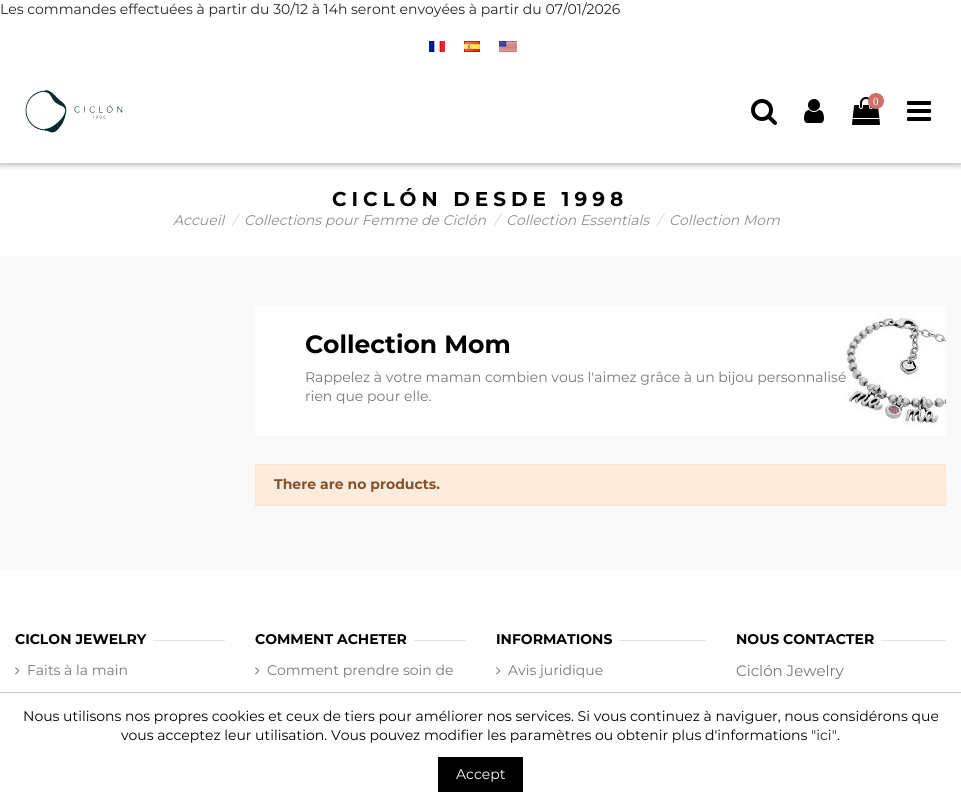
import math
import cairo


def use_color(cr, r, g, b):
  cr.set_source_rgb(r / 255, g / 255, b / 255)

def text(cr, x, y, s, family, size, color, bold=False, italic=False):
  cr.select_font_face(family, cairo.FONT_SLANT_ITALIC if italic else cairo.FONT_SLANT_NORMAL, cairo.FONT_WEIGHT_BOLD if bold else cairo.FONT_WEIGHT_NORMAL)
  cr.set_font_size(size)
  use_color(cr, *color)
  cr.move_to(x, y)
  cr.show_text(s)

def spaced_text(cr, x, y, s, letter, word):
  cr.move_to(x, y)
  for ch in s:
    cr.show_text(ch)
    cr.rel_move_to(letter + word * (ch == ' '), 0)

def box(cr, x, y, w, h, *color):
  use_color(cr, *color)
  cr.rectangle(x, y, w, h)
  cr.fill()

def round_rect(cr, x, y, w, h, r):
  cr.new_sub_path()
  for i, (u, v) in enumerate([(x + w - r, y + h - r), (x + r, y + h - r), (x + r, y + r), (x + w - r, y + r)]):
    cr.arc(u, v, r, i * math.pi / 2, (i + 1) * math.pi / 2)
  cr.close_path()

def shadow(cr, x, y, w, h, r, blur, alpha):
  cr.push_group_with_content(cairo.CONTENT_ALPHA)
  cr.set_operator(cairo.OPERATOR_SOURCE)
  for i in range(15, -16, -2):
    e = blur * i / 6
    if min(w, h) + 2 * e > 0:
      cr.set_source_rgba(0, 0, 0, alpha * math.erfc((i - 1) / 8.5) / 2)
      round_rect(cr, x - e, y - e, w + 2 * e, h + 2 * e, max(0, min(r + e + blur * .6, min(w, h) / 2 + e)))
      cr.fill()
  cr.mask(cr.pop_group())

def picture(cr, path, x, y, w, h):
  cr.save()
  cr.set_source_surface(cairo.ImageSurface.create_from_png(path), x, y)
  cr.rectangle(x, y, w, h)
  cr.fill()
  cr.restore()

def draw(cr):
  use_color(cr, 249, 249, 249)
  cr.paint()
  box(cr, 0, 165, 961, 91, 255, 255, 255)
  use_color(cr, 61, 57, 57)
  shadow(cr, 0, -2, 961, 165, 0, 5.5, 0.17)
  box(cr, 0, 0, 961, 163, 255, 255, 255)
  box(cr, 0, 163, 961, 2, 227, 227, 227)
  cr.save()
  cr.rectangle(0, 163, 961, 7)
  cr.clip()
  use_color(cr, 119, 119, 119)
  shadow(cr, 0, 4, 961, 163, 0, 2.5, 0.18)
  cr.restore()
  picture(cr, "img_01.png", 429, 41, 16, 11)
  picture(cr, "img_02.png", 464, 41, 16, 11)
  picture(cr, "img_03.png", 499, 41, 18, 11)
  picture(cr, "img_04.png", 25, 90, 98, 43)
  picture(cr, "img_05.png", 751, 99, 26, 26)
  picture(cr, "img_06.png", 804, 99, 20, 24)
  picture(cr, "img_07.png", 852, 97, 28, 28)
  use_color(cr, 208, 110, 106)
  cr.arc(876, 101, 8, 0, 2 * math.pi)
  cr.fill()
  picture(cr, "img_08.png", 907, 101, 24, 20)
  box(cr, 255, 306, 691, 130, 255, 255, 255)
  picture(cr, "img_09.png", 846, 314, 100, 112)
  use_color(cr, 255, 235, 220)
  cr.rectangle(255.5, 464.5, 690, 41)
  cr.fill_preserve()
  use_color(cr, 255, 227, 207)
  cr.set_line_width(1)
  cr.stroke()
  box(cr, 0, 570, 961, 122, 255, 255, 255)
  box(cr, 153, 640, 72, 1, 227, 227, 227)
  picture(cr, "img_10.png", 15, 667, 5, 8)
  box(cr, 414, 640, 52, 1, 227, 227, 227)
  picture(cr, "img_10.png", 255, 667, 5, 8)
  box(cr, 619, 640, 87, 1, 227, 227, 227)
  picture(cr, "img_10.png", 496, 667, 5, 8)
  box(cr, 881, 640, 65, 1, 227, 227, 227)
  box(cr, 0, 693, 961, 112, 255, 255, 255)
  box(cr, 0, 692, 961, 1, 204, 204, 204)
  box(cr, 438, 757, 85, 35, 0, 0, 0)
  text(cr, 0, 14, "Les commandes effectuées à partir du 30/12 à 14h seront envoyées à partir du 07/01/2026", "Montserrat", 14, (33, 37, 41))
  text(cr, 873, 105, "0", "Liberation Serif", 11, (255, 255, 255))
  cr.select_font_face("Montserrat", cairo.FONT_SLANT_NORMAL, cairo.FONT_WEIGHT_BOLD)
  cr.set_font_size(20)
  use_color(cr, 0, 0, 0)
  spaced_text(cr, 332, 206, "CICLÓN DESDE 1998", 5, 0)
  text(cr, 173, 225, "Accueil", "Montserrat", 14, (143, 143, 143), italic=True)
  text(cr, 232, 225, "/", "Montserrat", 14, (210, 210, 210), italic=True)
  text(cr, 244, 225, "Collections pour Femme de Ciclón", "Montserrat", 14, (143, 143, 143), italic=True)
  text(cr, 494, 225, "/", "Montserrat", 14, (210, 210, 210), italic=True)
  text(cr, 506, 225, "Collection Essentials", "Montserrat", 14, (143, 143, 143), italic=True)
  text(cr, 657, 225, "/", "Montserrat", 14, (210, 210, 210), italic=True)
  text(cr, 669, 225, "Collection Mom", "Montserrat", 14, (143, 143, 143), italic=True)
  text(cr, 305, 353, "Collection Mom", "Montserrat", 25, (0, 0, 0), bold=True)
  text(cr, 305, 382, "Rappelez à votre maman combien vous l'aimez grâce à un bijou personnalisé", "Montserrat", 14, (119, 119, 119))
  text(cr, 305, 401, "rien que pour elle.", "Montserrat", 14, (119, 119, 119))
  text(cr, 274, 489, "There are no products.", "Montserrat", 14, (133, 80, 43), bold=True)
  text(cr, 15, 644, "CICLON JEWELRY", "Montserrat", 14, (0, 0, 0), bold=True)
  text(cr, 27, 675, "Faits à la main", "Montserrat", 14, (119, 119, 119))
  text(cr, 255, 644, "COMMENT ACHETER", "Montserrat", 14, (0, 0, 0), bold=True)
  text(cr, 267, 675, "Comment prendre soin de", "Montserrat", 14, (119, 119, 119))
  text(cr, 496, 644, "INFORMATIONS", "Montserrat", 14, (0, 0, 0), bold=True)
  text(cr, 508, 675, "Avis juridique", "Montserrat", 14, (119, 119, 119))
  text(cr, 736, 644, "NOUS CONTACTER", "Montserrat", 14, (0, 0, 0), bold=True)
  text(cr, 736, 676, "Ciclón Jewelry", "Montserrat", 15, (119, 119, 119))
  text(cr, 23, 721, "Nous utilisons nos propres cookies et ceux de tiers pour améliorer nos services. Si vous continuez à naviguer, nous considérons que", "Montserrat", 14, (0, 0, 0))
  text(cr, 121, 740, "vous acceptez leur utilisation. Vous pouvez modifier les paramètres ou obtenir plus d'informations", "Montserrat", 14, (0, 0, 0))
  text(cr, 811, 740, "\"ici\"", "Montserrat", 14, (33, 37, 41))
  text(cr, 837, 740, ".", "Montserrat", 14, (0, 0, 0))
  text(cr, 456, 779, "Accept", "Montserrat", 14, (255, 255, 255))


surface = cairo.ImageSurface(cairo.FORMAT_RGB24, 961, 805)
cr = cairo.Context(surface)
options = cairo.FontOptions()
options.set_hint_metrics(cairo.HINT_METRICS_OFF)
options.set_hint_style(cairo.HINT_STYLE_NONE)
cr.set_font_options(options)
cr.set_miter_limit(4)
draw(cr)
surface.write_to_png("out.png")
